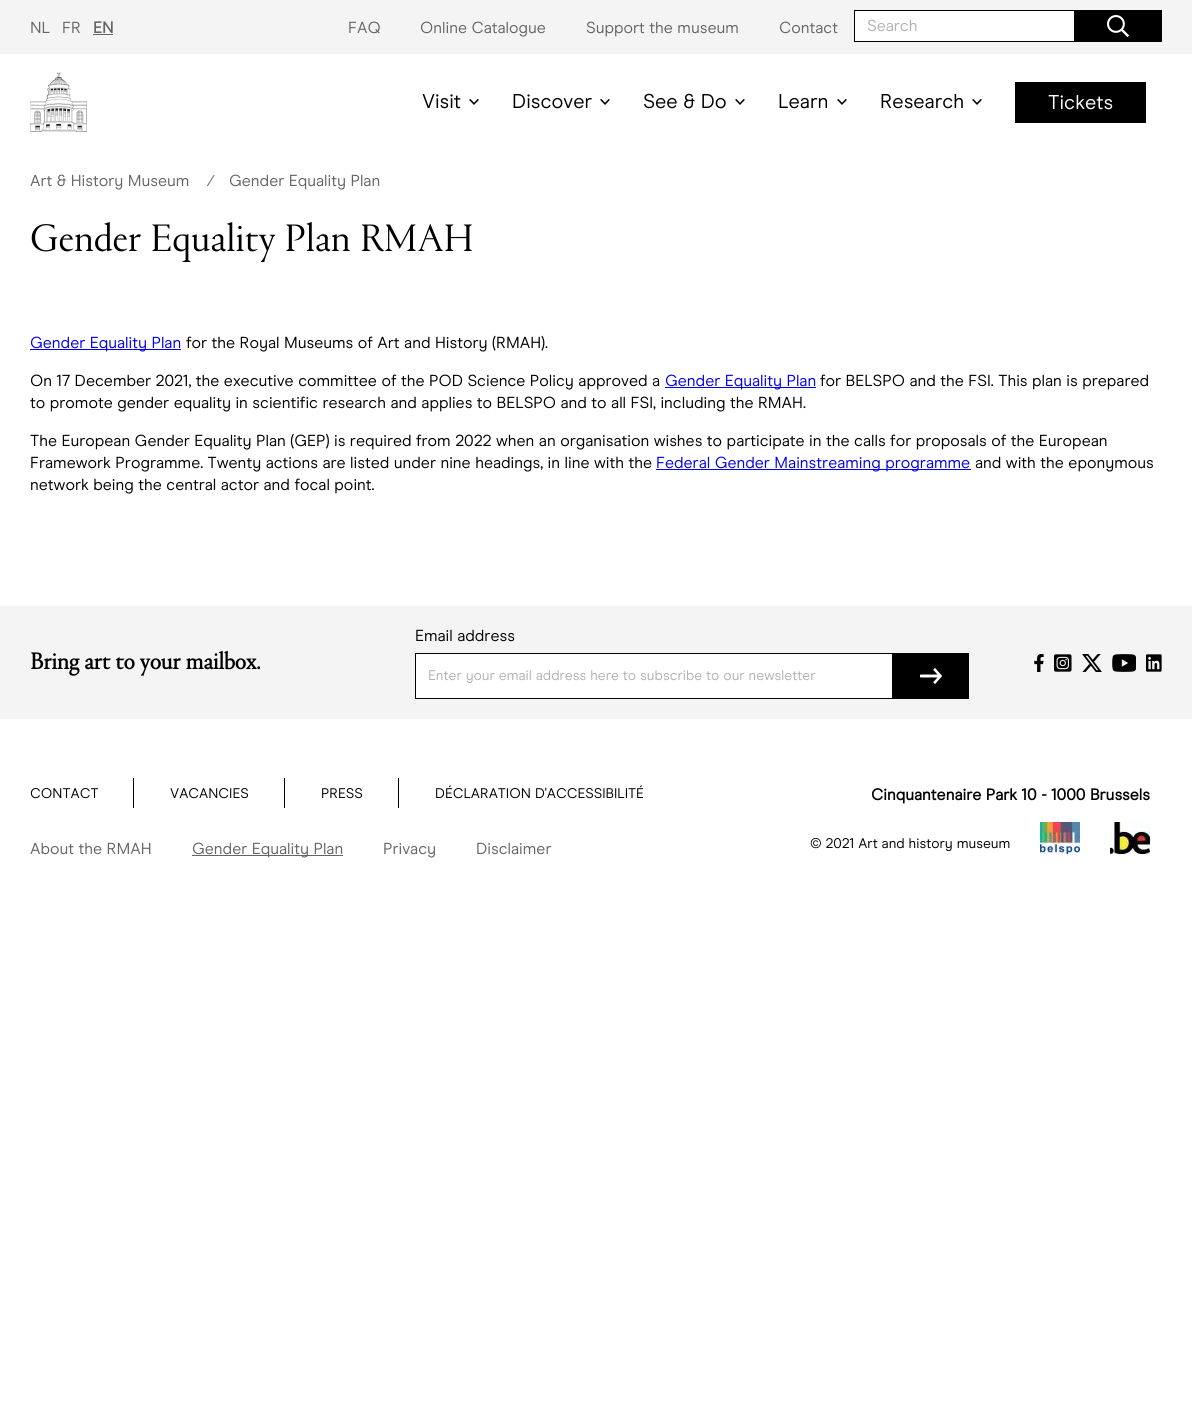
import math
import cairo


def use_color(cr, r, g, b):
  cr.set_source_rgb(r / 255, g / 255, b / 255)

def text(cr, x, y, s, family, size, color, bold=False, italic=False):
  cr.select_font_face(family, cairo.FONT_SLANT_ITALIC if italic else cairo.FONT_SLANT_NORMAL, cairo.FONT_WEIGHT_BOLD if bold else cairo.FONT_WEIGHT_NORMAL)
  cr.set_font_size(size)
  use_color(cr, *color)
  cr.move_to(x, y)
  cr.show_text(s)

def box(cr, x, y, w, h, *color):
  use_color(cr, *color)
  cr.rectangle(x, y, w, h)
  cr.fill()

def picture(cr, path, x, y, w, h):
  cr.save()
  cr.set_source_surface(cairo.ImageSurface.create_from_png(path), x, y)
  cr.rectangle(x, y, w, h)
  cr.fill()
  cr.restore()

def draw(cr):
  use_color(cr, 255, 255, 255)
  cr.paint()
  box(cr, 0, 0, 1192, 54, 244, 244, 244)
  box(cr, 93, 34, 20, 1, 100, 100, 100)
  box(cr, 855, 11, 219, 30, 255, 255, 255)
  box(cr, 854, 10, 220, 1, 0, 0, 0)
  box(cr, 854, 41, 220, 1, 0, 0, 0)
  box(cr, 854, 10, 1, 32, 0, 0, 0)
  box(cr, 1074, 10, 88, 32, 0, 0, 0)
  picture(cr, "img_01.png", 1107, 15, 22, 22)
  picture(cr, "img_02.png", 30, 72, 57, 60)
  picture(cr, "img_03.png", 469, 99, 10, 6)
  picture(cr, "img_03.png", 600, 99, 10, 6)
  picture(cr, "img_03.png", 735, 99, 10, 6)
  picture(cr, "img_03.png", 837, 99, 10, 6)
  picture(cr, "img_03.png", 972, 99, 10, 6)
  box(cr, 1015, 82, 131, 41, 0, 0, 0)
  box(cr, 30, 349, 151, 1, 0, 0, 238)
  box(cr, 665, 387, 151, 1, 0, 0, 238)
  box(cr, 656, 469, 315, 1, 0, 0, 238)
  box(cr, 0, 606, 1192, 113, 244, 244, 244)
  use_color(cr, 255, 255, 255)
  cr.rectangle(415.5, 653.5, 477, 45)
  cr.fill_preserve()
  use_color(cr, 0, 0, 0)
  cr.set_line_width(1)
  cr.stroke()
  box(cr, 893, 653, 76, 46, 0, 0, 0)
  picture(cr, "img_04.png", 920, 668, 22, 16)
  picture(cr, "img_05.png", 1034, 654, 10, 18)
  picture(cr, "img_06.png", 1054, 654, 18, 18)
  picture(cr, "img_07.png", 1082, 654, 20, 18)
  picture(cr, "img_08.png", 1112, 654, 24, 18)
  picture(cr, "img_09.png", 1146, 654, 16, 18)
  box(cr, 133, 778, 1, 30, 0, 0, 0)
  box(cr, 284, 778, 1, 30, 0, 0, 0)
  box(cr, 398, 778, 1, 30, 0, 0, 0)
  box(cr, 192, 855, 151, 1, 100, 100, 100)
  picture(cr, "img_10.png", 1040, 822, 40, 32)
  picture(cr, "img_11.png", 1110, 822, 40, 32)
  text(cr, 30, 33, "NL", "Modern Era", 16, (100, 100, 100))
  text(cr, 62, 33, "FR", "Modern Era", 16, (100, 100, 100))
  text(cr, 93, 33, "EN", "Modern Era", 16, (100, 100, 100), bold=True)
  text(cr, 348, 33, "FAQ", "Modern Era", 16, (100, 100, 100))
  text(cr, 420, 33, "Online Catalogue", "Modern Era", 16, (100, 100, 100))
  text(cr, 586, 33, "Support the museum", "Modern Era", 16, (100, 100, 100))
  text(cr, 779, 33, "Contact", "Modern Era", 16, (100, 100, 100))
  text(cr, 867, 31, "Search", "Modern Era", 16, (178, 178, 178))
  text(cr, 422, 108, "Visit", "Modern Era", 20, (0, 0, 0))
  text(cr, 512, 108, "Discover", "Modern Era", 20, (0, 0, 0))
  text(cr, 643, 108, "See & Do", "Modern Era", 20, (0, 0, 0))
  text(cr, 778, 108, "Learn", "Modern Era", 20, (0, 0, 0))
  text(cr, 880, 108, "Research", "Modern Era", 20, (0, 0, 0))
  text(cr, 1048, 109, "Tickets", "Modern Era", 20, (255, 255, 255))
  text(cr, 30, 186, "Art & History Museum", "Modern Era", 16, (100, 100, 100))
  text(cr, 210, 186, "∕", "Liberation Sans", 16, (100, 100, 100))
  text(cr, 229, 186, "Gender Equality Plan", "Modern Era", 16, (100, 100, 100))
  text(cr, 30, 251, "Gender Equality Plan RMAH", "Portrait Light", 40, (0, 0, 0))
  text(cr, 30, 348, "Gender Equality Plan", "Modern Era", 16, (0, 0, 238))
  text(cr, 186, 348, "for the Royal Museums of Art and History (RMAH).", "Modern Era", 16, (0, 0, 0))
  text(cr, 30, 386, "On 17 December 2021, the executive committee of the POD Science Policy approved a", "Modern Era", 16, (0, 0, 0))
  text(cr, 665, 386, "Gender Equality Plan", "Modern Era", 16, (0, 0, 238))
  text(cr, 820, 386, "for BELSPO and the FSI. This plan is prepared", "Modern Era", 16, (0, 0, 0))
  text(cr, 30, 408, "to promote gender equality in scientific research and applies to BELSPO and to all FSI, including the RMAH.", "Modern Era", 16, (0, 0, 0))
  text(cr, 30, 446, "The European Gender Equality Plan (GEP) is required from 2022 when an organisation wishes to participate in the calls for proposals of the European", "Modern Era", 16, (0, 0, 0))
  text(cr, 30, 468, "Framework Programme. Twenty actions are listed under nine headings, in line with the", "Modern Era", 16, (0, 0, 0))
  text(cr, 656, 468, "Federal Gender Mainstreaming programme", "Modern Era", 16, (0, 0, 238))
  text(cr, 975, 468, "and with the eponymous", "Modern Era", 16, (0, 0, 0))
  text(cr, 30, 490, "network being the central actor and focal point.", "Modern Era", 16, (0, 0, 0))
  text(cr, 30, 669, "Bring art to your mailbox.", "Portrait", 24, (0, 0, 0), bold=True)
  text(cr, 415, 641, "Email address", "Modern Era", 16, (0, 0, 0))
  text(cr, 428, 680, "Enter your email address here to subscribe to our newsletter", "Modern Era", 14, (178, 178, 178))
  text(cr, 30, 798, "CONTACT", "Modern Era", 14, (0, 0, 0))
  text(cr, 170, 798, "VACANCIES", "Modern Era", 14, (0, 0, 0))
  text(cr, 321, 798, "PRESS", "Modern Era", 14, (0, 0, 0))
  text(cr, 435, 798, "DÉCLARATION D'ACCESSIBILITÉ", "Modern Era", 14, (0, 0, 0))
  text(cr, 30, 854, "About the RMAH", "Modern Era", 16, (100, 100, 100))
  text(cr, 192, 854, "Gender Equality Plan", "Modern Era", 16, (100, 100, 100))
  text(cr, 383, 854, "Privacy", "Modern Era", 16, (100, 100, 100))
  text(cr, 476, 854, "Disclaimer", "Modern Era", 16, (100, 100, 100))
  text(cr, 871, 800, "Cinquantenaire Park 10 - 1000 Brussels", "Modern Era", 16, (0, 0, 0), bold=True)
  text(cr, 810, 848, "© 2021 Art and history museum", "Modern Era", 14, (0, 0, 0))


surface = cairo.ImageSurface(cairo.FORMAT_RGB24, 1192, 1423)
cr = cairo.Context(surface)
options = cairo.FontOptions()
options.set_hint_metrics(cairo.HINT_METRICS_OFF)
options.set_hint_style(cairo.HINT_STYLE_NONE)
cr.set_font_options(options)
cr.set_miter_limit(4)
draw(cr)
surface.write_to_png("out.png")
